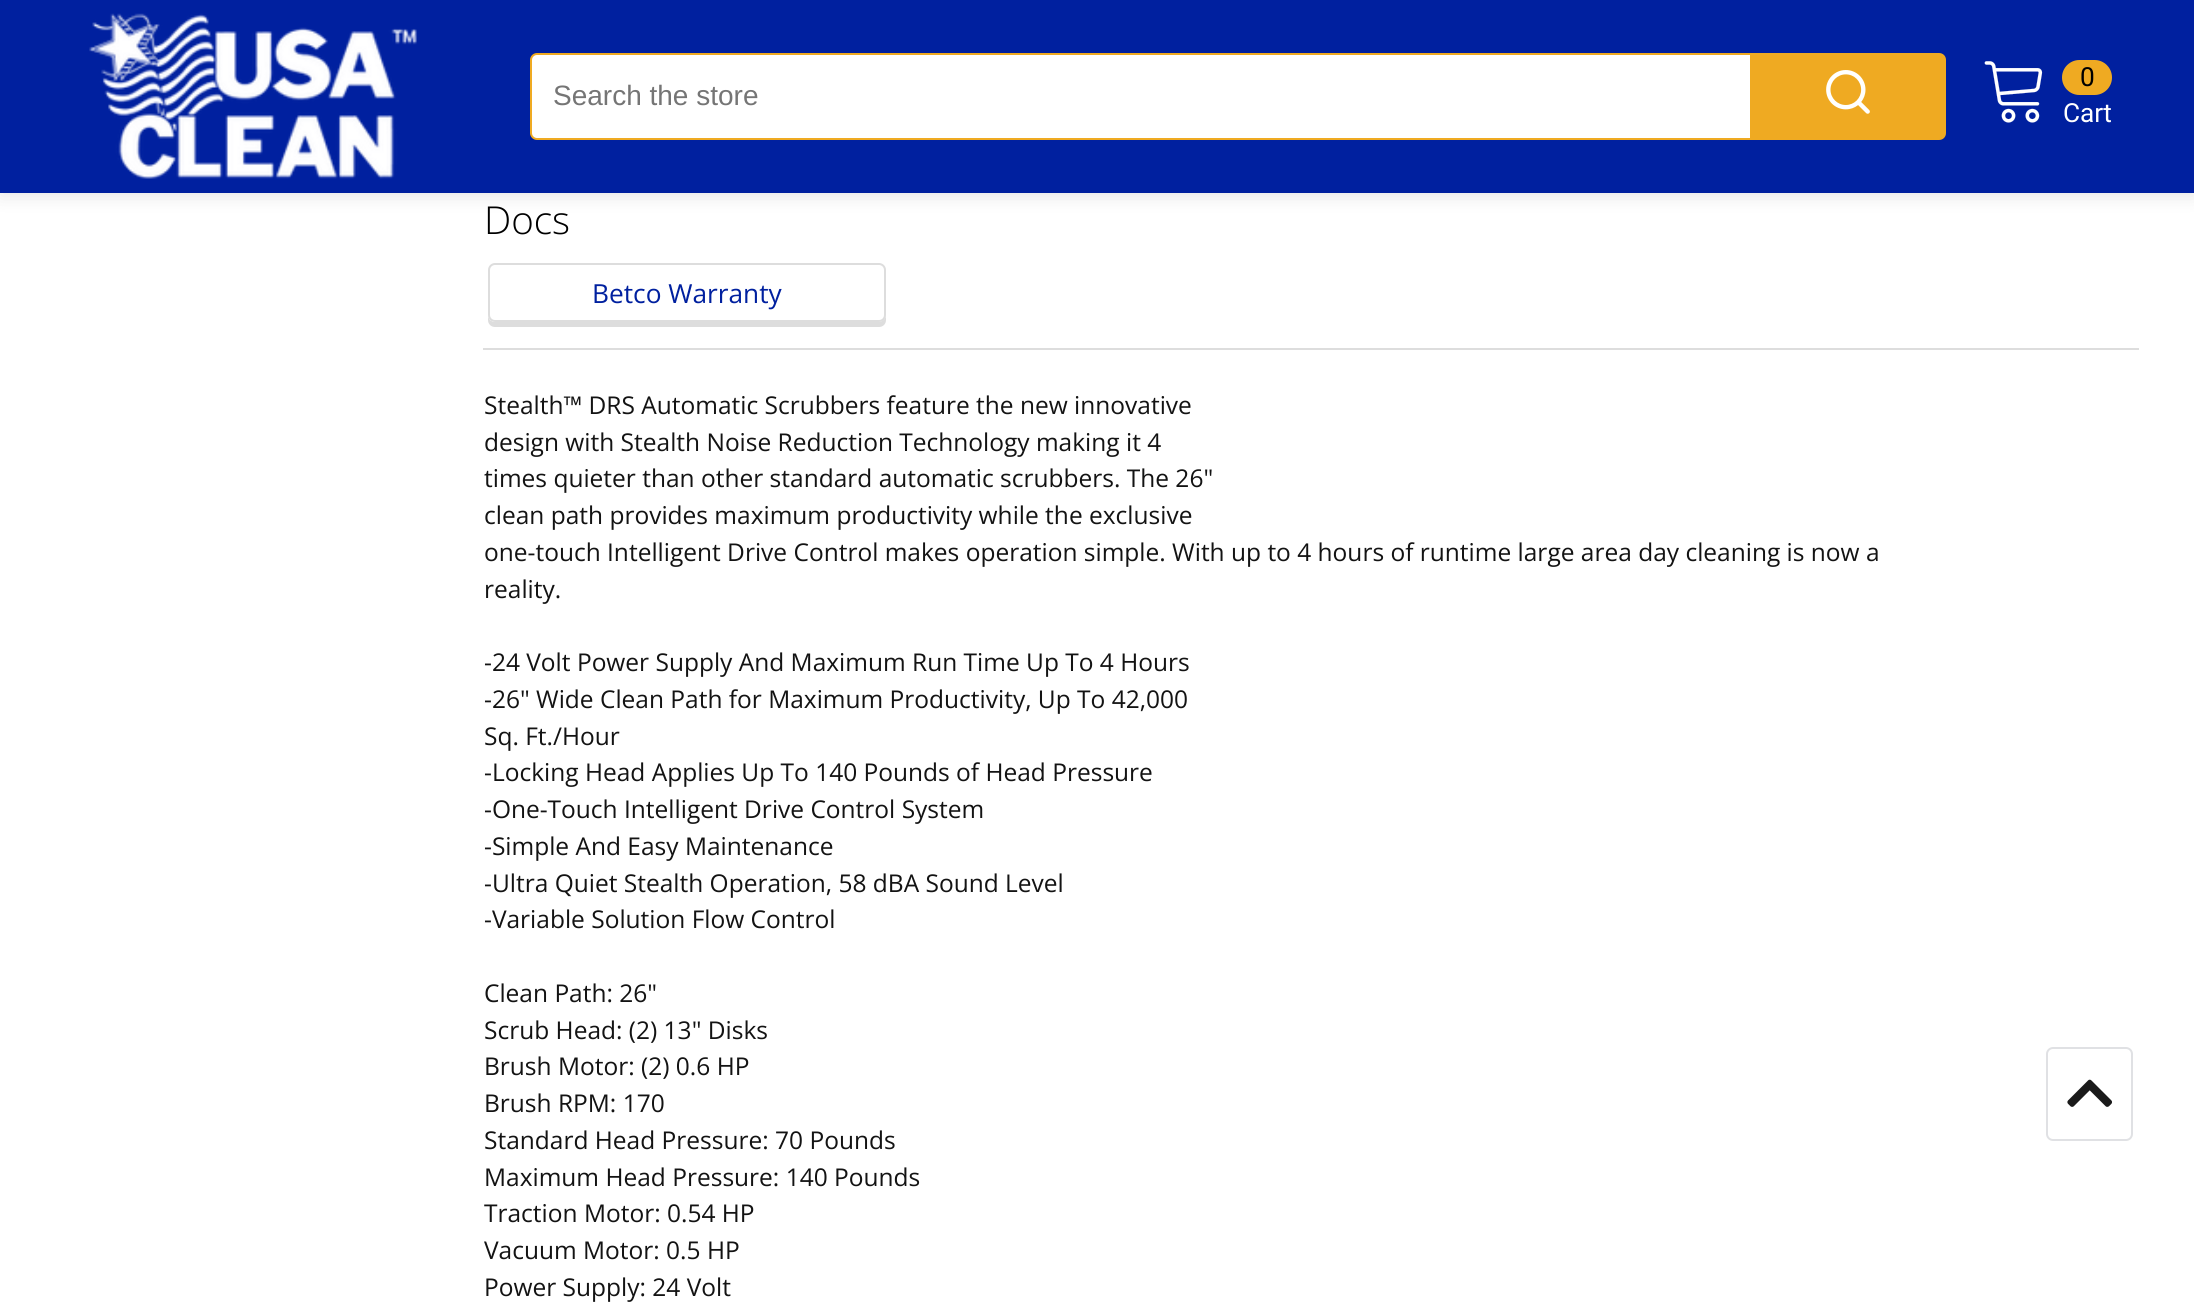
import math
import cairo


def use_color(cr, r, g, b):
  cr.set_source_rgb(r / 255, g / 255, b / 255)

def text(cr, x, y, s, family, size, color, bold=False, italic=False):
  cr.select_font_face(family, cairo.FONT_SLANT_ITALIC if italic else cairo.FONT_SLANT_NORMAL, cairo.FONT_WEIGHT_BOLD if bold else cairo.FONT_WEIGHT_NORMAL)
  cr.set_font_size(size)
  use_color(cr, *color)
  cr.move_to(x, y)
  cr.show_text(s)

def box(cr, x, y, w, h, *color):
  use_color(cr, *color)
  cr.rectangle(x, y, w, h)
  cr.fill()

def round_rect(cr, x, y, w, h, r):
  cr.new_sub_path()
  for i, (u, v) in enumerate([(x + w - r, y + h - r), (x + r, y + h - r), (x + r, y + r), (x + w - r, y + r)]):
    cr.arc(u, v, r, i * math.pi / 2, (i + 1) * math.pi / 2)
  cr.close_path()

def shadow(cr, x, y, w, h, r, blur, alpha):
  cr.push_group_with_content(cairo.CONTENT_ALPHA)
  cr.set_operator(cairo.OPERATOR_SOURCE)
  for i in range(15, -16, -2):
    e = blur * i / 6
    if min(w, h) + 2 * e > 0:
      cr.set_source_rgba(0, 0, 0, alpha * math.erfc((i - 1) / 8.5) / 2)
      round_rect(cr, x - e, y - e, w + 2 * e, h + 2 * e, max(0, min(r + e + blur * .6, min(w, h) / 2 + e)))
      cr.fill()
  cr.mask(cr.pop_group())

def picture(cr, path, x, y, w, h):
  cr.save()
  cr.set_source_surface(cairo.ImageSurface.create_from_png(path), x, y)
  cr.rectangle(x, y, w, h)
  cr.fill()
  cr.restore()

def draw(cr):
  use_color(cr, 255, 255, 255)
  cr.paint()
  use_color(cr, 0, 0, 0)
  shadow(cr, 0, 4, 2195, 192, 0, 9, 0.1)
  box(cr, 0, 0, 2194, 193, 0, 32, 159)
  picture(cr, "img_01.png", 89, 13, 328, 166)
  use_color(cr, 255, 255, 255)
  round_rect(cr, 531, 54, 1239, 85, 6)
  cr.fill_preserve()
  use_color(cr, 239, 170, 34)
  cr.stroke()
  cr.new_path()
  cr.move_to(1750, 53)
  cr.line_to(1939, 53)
  cr.curve_to(1943, 53, 1946, 56, 1946, 60)
  cr.line_to(1946, 133)
  cr.curve_to(1946, 137, 1943, 140, 1939, 140)
  cr.line_to(1750, 140)
  cr.close_path()
  cr.fill()
  picture(cr, "img_02.png", 1826, 70, 44, 44)
  picture(cr, "img_03.png", 1984, 61, 59, 62)
  round_rect(cr, 2062, 60, 50, 35, 17.5)
  cr.fill()
  use_color(cr, 221, 221, 221)
  cr.new_path()
  cr.move_to(488, 273)
  cr.line_to(488, 320)
  cr.curve_to(488, 324, 491, 327, 495, 327)
  cr.line_to(879, 327)
  cr.curve_to(883, 327, 886, 324, 886, 320)
  cr.line_to(886, 275)
  cr.line_to(886, 272)
  cr.line_to(886, 315)
  cr.curve_to(886, 319, 882, 322, 878, 322)
  cr.line_to(495, 322)
  cr.curve_to(491, 322, 488, 319, 488, 315)
  cr.close_path()
  cr.fill()
  round_rect(cr, 489, 264, 396, 57, 6)
  cr.stroke()
  box(cr, 483, 348, 1656, 2, 221, 221, 221)
  round_rect(cr, 2047, 1048, 85, 92, 6)
  use_color(cr, 224, 225, 228)
  cr.stroke()
  picture(cr, "img_04.png", 2067, 1079, 45, 28)
  text(cr, 553, 105, "Search the store", "Liberation Sans", 28, (117, 117, 117))
  text(cr, 2080, 86, "0", "Roboto", 26.25, (0, 0, 0))
  text(cr, 2063, 122, "Cart", "Roboto", 26.25, (255, 255, 255))
  text(cr, 484, 234, "Docs", "Open Sans Light", 38.5, (0, 0, 0))
  text(cr, 592, 303, "Betco Warranty", "Open Sans", 26.25, (0, 32, 159))
  text(cr, 484, 414, "Stealth™ DRS Automatic Scrubbers feature the new innovative", "Open Sans", 24.5, (19, 19, 19))
  text(cr, 484, 451, "design with Stealth Noise Reduction Technology making it 4", "Open Sans", 24.5, (19, 19, 19))
  text(cr, 484, 487, "times quieter than other standard automatic scrubbers. The 26\"", "Open Sans", 24.5, (19, 19, 19))
  text(cr, 484, 524, "clean path provides maximum productivity while the exclusive", "Open Sans", 24.5, (19, 19, 19))
  text(cr, 484, 561, "one-touch Intelligent Drive Control makes operation simple. With up to 4 hours of runtime large area day cleaning is now a", "Open Sans", 24.5, (19, 19, 19))
  text(cr, 484, 598, "reality.", "Open Sans", 24.5, (19, 19, 19))
  text(cr, 484, 671, "-24 Volt Power Supply And Maximum Run Time Up To 4 Hours", "Open Sans", 24.5, (19, 19, 19))
  text(cr, 484, 708, "-26\" Wide Clean Path for Maximum Productivity, Up To 42,000", "Open Sans", 24.5, (19, 19, 19))
  text(cr, 484, 745, "Sq. Ft./Hour", "Open Sans", 24.5, (19, 19, 19))
  text(cr, 484, 781, "-Locking Head Applies Up To 140 Pounds of Head Pressure", "Open Sans", 24.5, (19, 19, 19))
  text(cr, 484, 818, "-One-Touch Intelligent Drive Control System", "Open Sans", 24.5, (19, 19, 19))
  text(cr, 484, 855, "-Simple And Easy Maintenance", "Open Sans", 24.5, (19, 19, 19))
  text(cr, 484, 892, "-Ultra Quiet Stealth Operation, 58 dBA Sound Level", "Open Sans", 24.5, (19, 19, 19))
  text(cr, 484, 928, "-Variable Solution Flow Control", "Open Sans", 24.5, (19, 19, 19))
  text(cr, 484, 1002, "Clean Path: 26\"", "Open Sans", 24.5, (19, 19, 19))
  text(cr, 484, 1039, "Scrub Head: (2) 13\" Disks", "Open Sans", 24.5, (19, 19, 19))
  text(cr, 484, 1075, "Brush Motor: (2) 0.6 HP", "Open Sans", 24.5, (19, 19, 19))
  text(cr, 484, 1112, "Brush RPM: 170", "Open Sans", 24.5, (19, 19, 19))
  text(cr, 484, 1149, "Standard Head Pressure: 70 Pounds", "Open Sans", 24.5, (19, 19, 19))
  text(cr, 484, 1186, "Maximum Head Pressure: 140 Pounds", "Open Sans", 24.5, (19, 19, 19))
  text(cr, 484, 1222, "Traction Motor: 0.54 HP", "Open Sans", 24.5, (19, 19, 19))
  text(cr, 484, 1259, "Vacuum Motor: 0.5 HP", "Open Sans", 24.5, (19, 19, 19))
  text(cr, 484, 1296, "Power Supply: 24 Volt", "Open Sans", 24.5, (19, 19, 19))


surface = cairo.ImageSurface(cairo.FORMAT_RGB24, 2194, 1316)
cr = cairo.Context(surface)
options = cairo.FontOptions()
options.set_hint_metrics(cairo.HINT_METRICS_OFF)
options.set_hint_style(cairo.HINT_STYLE_NONE)
cr.set_font_options(options)
cr.set_miter_limit(4)
draw(cr)
surface.write_to_png("out.png")
